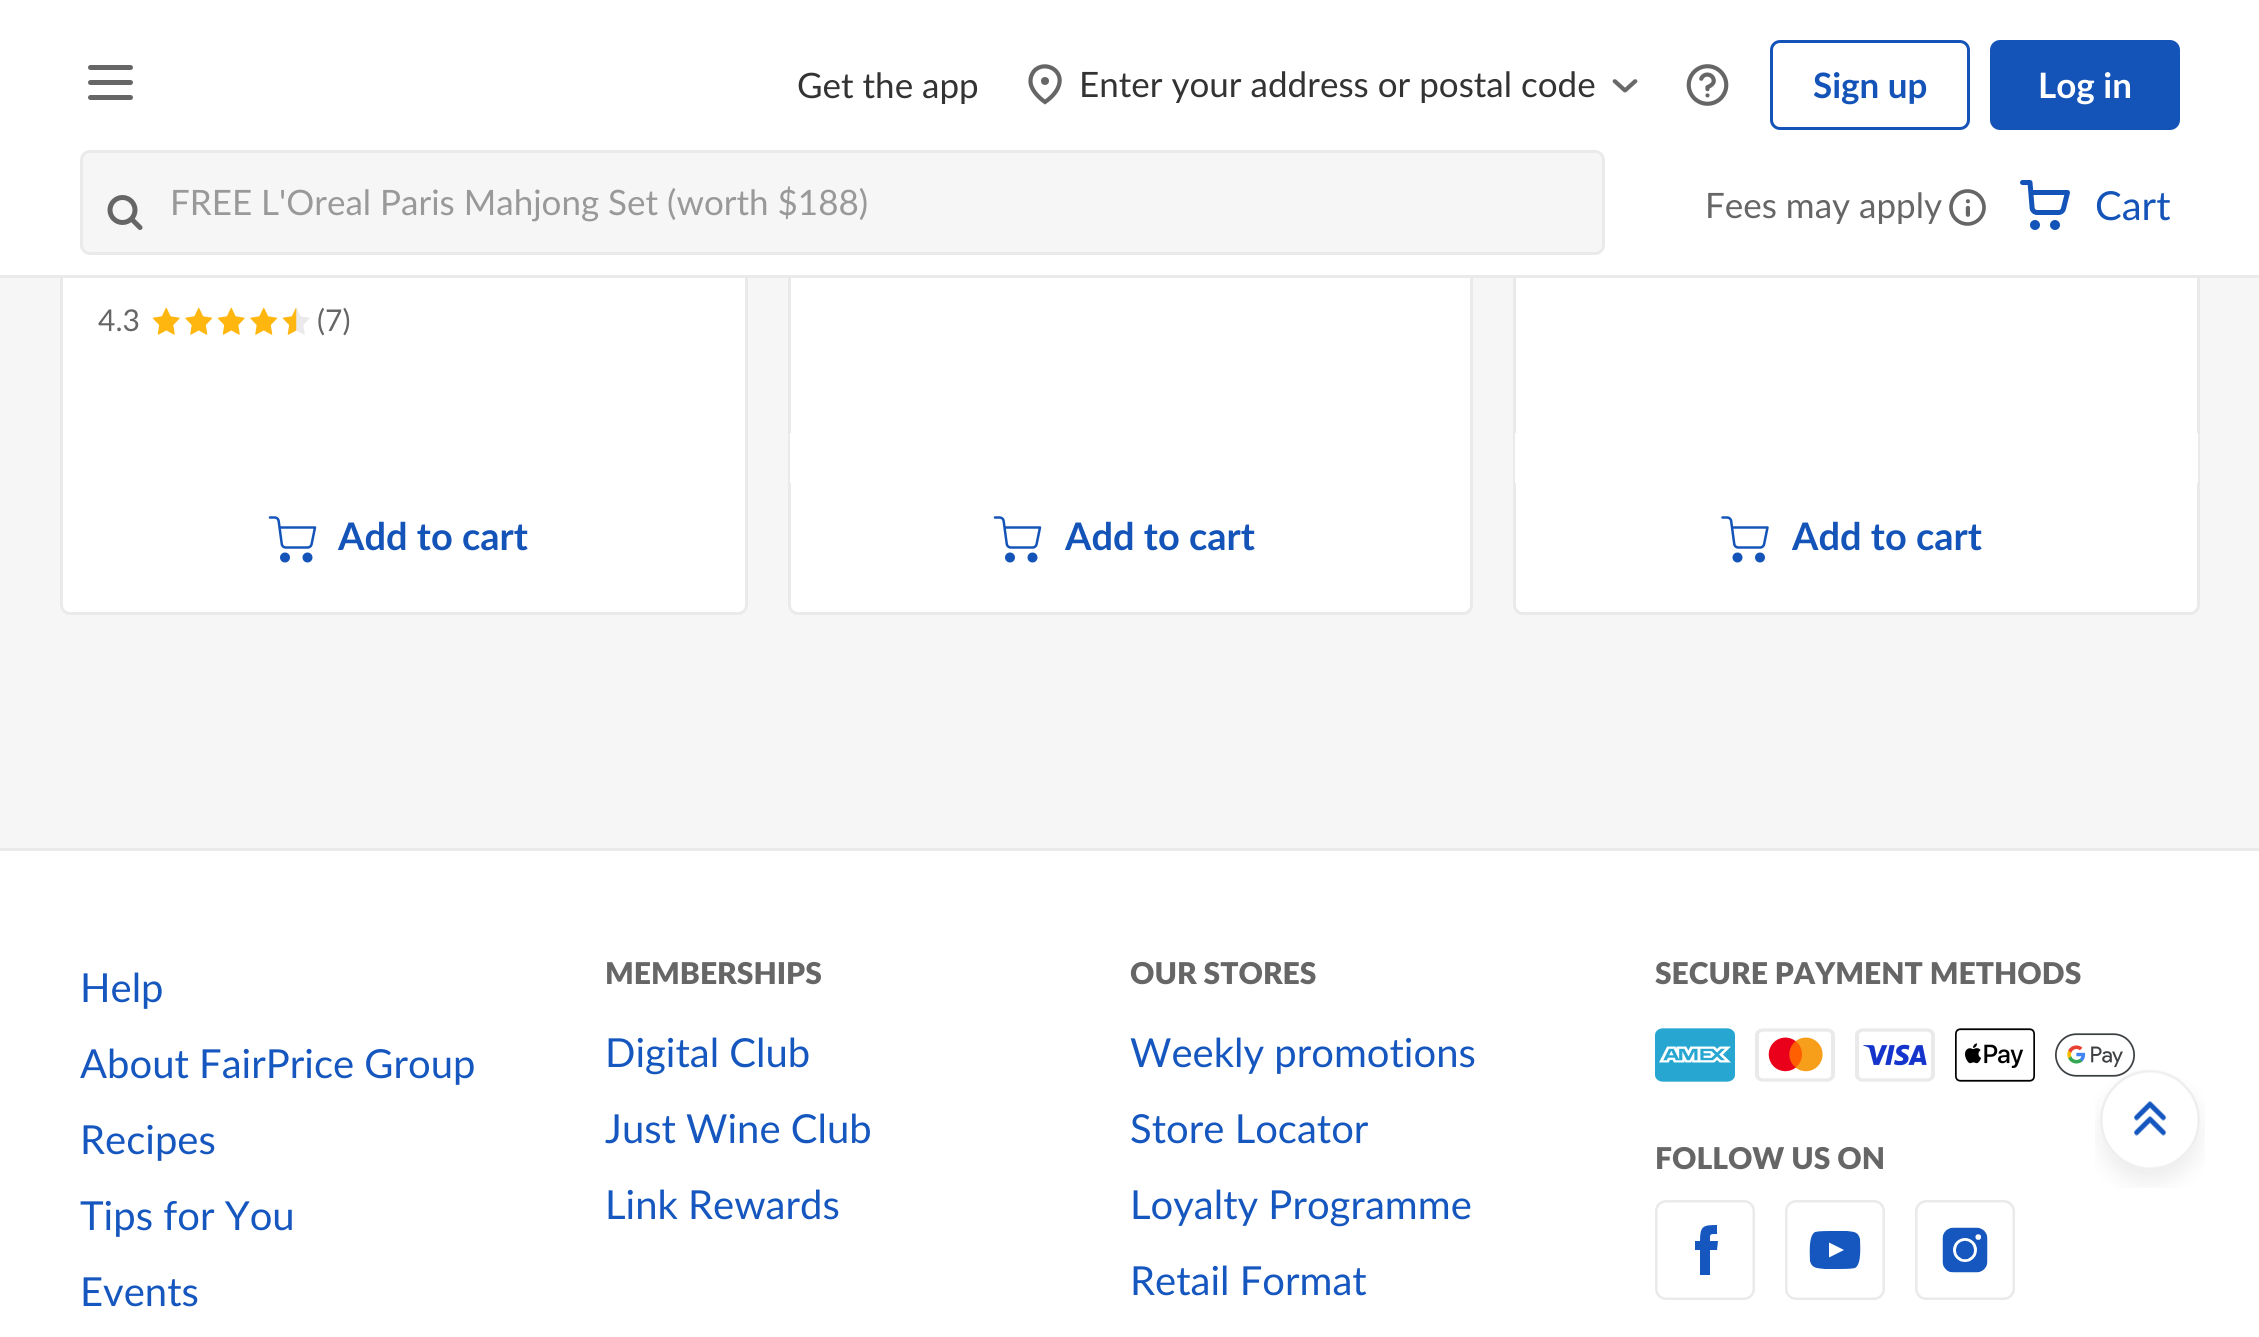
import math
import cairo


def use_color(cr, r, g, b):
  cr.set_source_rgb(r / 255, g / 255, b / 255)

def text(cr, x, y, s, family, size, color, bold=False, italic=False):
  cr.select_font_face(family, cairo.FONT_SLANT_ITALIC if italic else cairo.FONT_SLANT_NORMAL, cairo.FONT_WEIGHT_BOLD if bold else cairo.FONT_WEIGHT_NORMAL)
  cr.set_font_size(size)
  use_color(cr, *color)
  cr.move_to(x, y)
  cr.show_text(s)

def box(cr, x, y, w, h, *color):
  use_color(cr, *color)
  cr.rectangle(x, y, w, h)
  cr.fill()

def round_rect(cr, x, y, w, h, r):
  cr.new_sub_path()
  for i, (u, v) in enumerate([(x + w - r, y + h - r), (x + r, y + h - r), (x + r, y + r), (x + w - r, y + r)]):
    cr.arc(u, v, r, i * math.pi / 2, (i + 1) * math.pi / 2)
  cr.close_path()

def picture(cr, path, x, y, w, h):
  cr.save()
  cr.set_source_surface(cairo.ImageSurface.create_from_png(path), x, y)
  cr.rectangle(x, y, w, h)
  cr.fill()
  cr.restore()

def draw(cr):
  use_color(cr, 246, 246, 246)
  cr.paint()
  use_color(cr, 255, 255, 255)
  round_rect(cr, 61.5, -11.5, 685, 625, 8.5)
  cr.fill_preserve()
  use_color(cr, 234, 234, 234)
  cr.set_line_width(3)
  cr.stroke()
  use_color(cr, 255, 255, 255)
  round_rect(cr, 789.5, -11.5, 682, 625, 8.5)
  cr.fill_preserve()
  use_color(cr, 234, 234, 234)
  cr.stroke()
  use_color(cr, 255, 255, 255)
  round_rect(cr, 1514.5, -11.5, 684, 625, 8.5)
  cr.fill_preserve()
  use_color(cr, 234, 234, 234)
  cr.stroke()
  box(cr, 0, 0, 2259, 275, 255, 255, 255)
  box(cr, 0, 275, 2259, 3, 234, 234, 234)
  use_color(cr, 102, 102, 102)
  round_rect(cr, 88, 65, 45, 5, 2.5)
  cr.fill()
  round_rect(cr, 88, 80, 45, 5, 2.5)
  cr.fill()
  round_rect(cr, 88, 95, 45, 5, 2.5)
  cr.fill()
  cr.new_path()
  cr.move_to(1045, 102)
  cr.curve_to(1051.5, 97.5, 1058.5, 90.5, 1059.5, 82.5)
  cr.curve_to(1061.5, 69, 1044.5, 61, 1034.5, 70.5)
  cr.curve_to(1032, 73.5, 1030.5, 77, 1030.5, 80.5)
  cr.curve_to(1030, 89, 1038.5, 97.5, 1045, 102)
  cr.close_path()
  cr.set_line_width(4.2)
  cr.stroke()
  cr.arc(1045, 81, 4, 0, 2 * math.pi)
  cr.fill()
  picture(cr, "img_01.png", 1612, 79, 26, 14)
  picture(cr, "img_02.png", 1686, 64, 43, 42)
  round_rect(cr, 1771.5, 41.5, 197, 87, 8.5)
  use_color(cr, 20, 84, 184)
  cr.set_line_width(3)
  cr.stroke()
  round_rect(cr, 1990, 40, 190, 90, 10)
  cr.fill()
  use_color(cr, 246, 246, 246)
  round_rect(cr, 81.5, 151.5, 1522, 102, 8.5)
  cr.fill_preserve()
  use_color(cr, 234, 234, 234)
  cr.stroke()
  cr.arc(122.5, 210, 12.5, 0, 2 * math.pi)
  use_color(cr, 102, 102, 102)
  cr.set_line_width(5)
  cr.stroke()
  cr.new_path()
  cr.move_to(140, 227.5)
  cr.line_to(132.5, 220)
  cr.set_line_cap(cairo.LINE_CAP_ROUND)
  cr.set_line_join(cairo.LINE_JOIN_ROUND)
  cr.stroke()
  picture(cr, "img_03.png", 1949, 189, 37, 37)
  picture(cr, "img_04.png", 2020, 180, 50, 50)
  picture(cr, "img_05.png", 152, 307, 28, 28)
  picture(cr, "img_06.png", 185, 307, 28, 28)
  picture(cr, "img_05.png", 217, 307, 28, 28)
  picture(cr, "img_06.png", 250, 307, 28, 28)
  picture(cr, "img_07.png", 282, 307, 28, 28)
  picture(cr, "img_08.png", 268, 516, 49, 47)
  box(cr, 790, 433, 1, 50, 255, 255, 255)
  picture(cr, "img_08.png", 993, 516, 49, 47)
  box(cr, 1515, 433, 683, 50, 255, 255, 255)
  picture(cr, "img_09.png", 1721, 516, 48, 47)
  box(cr, 0, 851, 2259, 486, 255, 255, 255)
  box(cr, 0, 848, 2259, 3, 234, 234, 234)
  picture(cr, "img_10.png", 1655, 1028, 80, 54)
  picture(cr, "img_11.png", 1755, 1028, 80, 54)
  picture(cr, "img_12.png", 1855, 1028, 80, 54)
  picture(cr, "img_13.png", 1955, 1028, 80, 54)
  picture(cr, "img_14.png", 2055, 1033, 80, 44)
  round_rect(cr, 1656.25, 1201.25, 97.5, 97.5, 9.75)
  cr.set_line_width(2.5)
  cr.set_line_cap(cairo.LINE_CAP_BUTT)
  cr.set_line_join(cairo.LINE_JOIN_MITER)
  cr.stroke()
  round_rect(cr, 1786.25, 1201.25, 97.5, 97.5, 9.75)
  cr.stroke()
  picture(cr, "img_15.png", 1915, 1200, 100, 100)
  use_color(cr, 21, 87, 191)
  cr.set_fill_rule(cairo.FILL_RULE_EVEN_ODD)
  cr.new_path()
  cr.move_to(1710, 1275)
  cr.line_to(1710, 1250)
  cr.line_to(1717, 1250)
  cr.line_to(1718, 1241)
  cr.line_to(1710, 1241)
  cr.curve_to(1710, 1234, 1709, 1234, 1717, 1234)
  cr.line_to(1717, 1225)
  cr.curve_to(1703, 1225, 1700, 1226, 1700, 1241)
  cr.line_to(1695, 1241)
  cr.line_to(1695, 1250)
  cr.line_to(1700, 1250)
  cr.line_to(1700, 1275)
  cr.close_path()
  cr.fill()
  cr.new_path()
  cr.move_to(1860, 1239)
  cr.curve_to(1858, 1231, 1853, 1232, 1847, 1231)
  cr.line_to(1831, 1231)
  cr.curve_to(1827, 1231, 1819, 1231, 1815, 1232)
  cr.curve_to(1808, 1236, 1810, 1255, 1810, 1261)
  cr.curve_to(1812, 1269, 1818, 1268, 1825, 1269)
  cr.line_to(1839, 1269)
  cr.curve_to(1843, 1269, 1851, 1269, 1855, 1268)
  cr.curve_to(1862, 1264, 1860, 1245, 1860, 1239)
  cr.close_path()
  cr.fill()
  use_color(cr, 255, 255, 255)
  cr.new_path()
  cr.move_to(1829, 1257.5)
  cr.line_to(1829, 1242.5)
  cr.line_to(1844, 1250)
  cr.close_path()
  cr.fill()
  picture(cr, "img_16.png", 2095, 1069, 110, 119)
  text(cr, 797, 98, "Get the app", "Lato", 35, (51, 51, 51))
  text(cr, 1079, 97, "Enter your address or postal code", "Lato", 35, (51, 51, 51))
  text(cr, 1813, 98, "Sign up", "Lato", 35, (20, 84, 184), bold=True)
  text(cr, 2038, 98, "Log in", "Lato", 35, (255, 255, 255), bold=True)
  text(cr, 170, 215, "FREE L'Oreal Paris Mahjong Set (worth $188)", "Lato", 35, (153, 153, 153))
  text(cr, 1705, 218, "Fees may apply", "Lato", 35, (102, 102, 102))
  text(cr, 2095, 220, "Cart", "Lato", 40, (20, 84, 184))
  text(cr, 98, 331, "4.3", "Lato", 30, (102, 102, 102))
  text(cr, 317, 331, "(7)", "Lato", 30, (102, 102, 102))
  text(cr, 338, 550, "Add to cart", "Lato", 38, (20, 84, 184), bold=True)
  text(cr, 1065, 550, "Add to cart", "Lato", 38, (20, 84, 184), bold=True)
  text(cr, 1792, 550, "Add to cart", "Lato", 38, (20, 84, 184), bold=True)
  text(cr, 80, 1002, "Help", "Lato", 40, (21, 87, 191))
  text(cr, 80, 1078, "About FairPrice Group", "Lato", 40, (21, 87, 191))
  text(cr, 80, 1154, "Recipes", "Lato", 40, (21, 87, 191))
  text(cr, 80, 1230, "Tips for You", "Lato", 40, (21, 87, 191))
  text(cr, 80, 1306, "Events", "Lato", 40, (21, 87, 191))
  text(cr, 605, 984, "MEMBERSHIPS", "Lato Black", 30, (102, 102, 102))
  text(cr, 605, 1067, "Digital Club", "Lato", 40, (21, 87, 191))
  text(cr, 605, 1143, "Just Wine Club", "Lato", 40, (21, 87, 191))
  text(cr, 605, 1219, "Link Rewards", "Lato", 40, (21, 87, 191))
  text(cr, 1130, 984, "OUR STORES", "Lato Black", 30, (102, 102, 102))
  text(cr, 1130, 1067, "Weekly promotions", "Lato", 40, (21, 87, 191))
  text(cr, 1130, 1143, "Store Locator", "Lato", 40, (21, 87, 191))
  text(cr, 1130, 1219, "Loyalty Programme", "Lato", 40, (21, 87, 191))
  text(cr, 1130, 1295, "Retail Format", "Lato", 40, (21, 87, 191))
  text(cr, 1655, 984, "SECURE PAYMENT METHODS", "Lato Black", 30, (102, 102, 102))
  text(cr, 1655, 1169, "FOLLOW US ON", "Lato Black", 30, (102, 102, 102))


surface = cairo.ImageSurface(cairo.FORMAT_RGB24, 2259, 1337)
cr = cairo.Context(surface)
options = cairo.FontOptions()
options.set_hint_metrics(cairo.HINT_METRICS_OFF)
options.set_hint_style(cairo.HINT_STYLE_NONE)
cr.set_font_options(options)
cr.set_miter_limit(4)
draw(cr)
surface.write_to_png("out.png")
